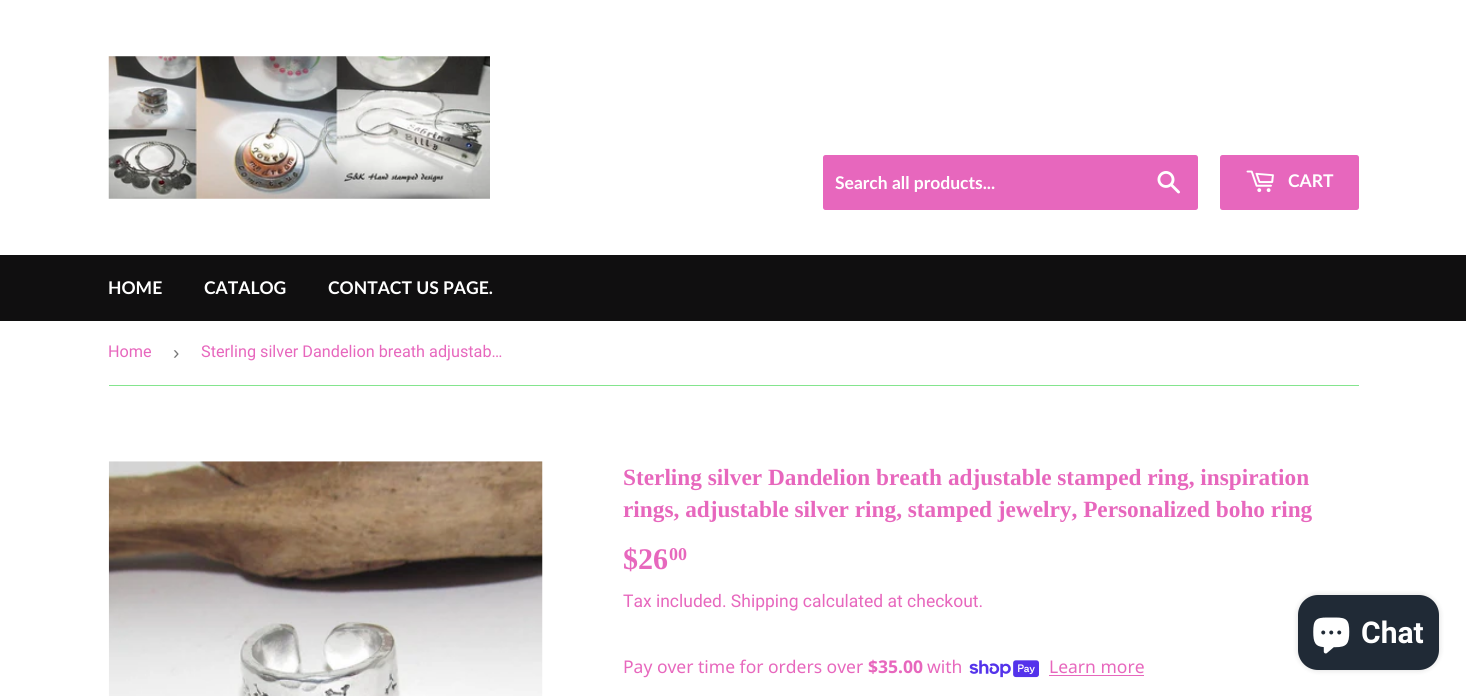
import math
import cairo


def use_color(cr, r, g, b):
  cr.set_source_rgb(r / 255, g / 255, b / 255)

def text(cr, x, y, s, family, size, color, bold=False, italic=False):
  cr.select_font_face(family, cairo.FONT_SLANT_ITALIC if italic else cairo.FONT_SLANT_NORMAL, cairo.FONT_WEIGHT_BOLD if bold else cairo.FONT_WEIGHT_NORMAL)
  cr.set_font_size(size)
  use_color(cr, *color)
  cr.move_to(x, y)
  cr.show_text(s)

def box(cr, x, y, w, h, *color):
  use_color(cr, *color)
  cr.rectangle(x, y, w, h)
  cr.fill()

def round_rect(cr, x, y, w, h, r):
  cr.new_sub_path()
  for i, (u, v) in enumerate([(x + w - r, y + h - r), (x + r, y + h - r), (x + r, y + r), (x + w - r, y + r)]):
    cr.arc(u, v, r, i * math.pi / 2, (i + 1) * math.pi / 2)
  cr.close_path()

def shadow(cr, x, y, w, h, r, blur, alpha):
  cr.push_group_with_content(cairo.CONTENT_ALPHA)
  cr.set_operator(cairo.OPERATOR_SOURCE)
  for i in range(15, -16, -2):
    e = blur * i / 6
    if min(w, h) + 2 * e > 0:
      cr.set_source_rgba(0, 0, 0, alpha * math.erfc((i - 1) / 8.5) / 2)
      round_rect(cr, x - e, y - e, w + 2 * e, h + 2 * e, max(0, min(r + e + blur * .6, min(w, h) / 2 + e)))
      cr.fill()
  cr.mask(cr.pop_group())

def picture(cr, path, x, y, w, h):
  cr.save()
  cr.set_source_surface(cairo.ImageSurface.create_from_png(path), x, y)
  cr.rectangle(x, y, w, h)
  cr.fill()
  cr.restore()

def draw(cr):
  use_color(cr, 255, 255, 255)
  cr.paint()
  picture(cr, "img_01.png", 108, 56, 382, 143)
  use_color(cr, 231, 103, 189)
  round_rect(cr, 823, 155, 375, 55, 2.5)
  cr.fill()
  picture(cr, "img_02.png", 1157, 171, 23, 23)
  round_rect(cr, 1220, 155, 139, 55, 2.5)
  cr.fill()
  picture(cr, "img_03.png", 1246, 170, 28, 23)
  box(cr, 0, 255, 1466, 66, 16, 15, 16)
  box(cr, 109, 385, 1250, 1, 132, 229, 142)
  picture(cr, "img_04.png", 108, 461, 435, 235)
  picture(cr, "img_05.png", 969, 660, 70, 18)
  box(cr, 1049, 675, 95, 1, 231, 103, 189)
  use_color(cr, 0, 0, 0)
  shadow(cr, 1298, 595, 141, 75, 20, 3, 0.15)
  use_color(cr, 32, 42, 54)
  round_rect(cr, 1298, 595, 141, 75, 20)
  cr.fill()
  picture(cr, "img_06.png", 1313, 617, 37, 37)
  text(cr, 835, 189, "Search all products...", "Lato", 17.5, (255, 255, 255), bold=True)
  text(cr, 1288, 187, "CART", "Lato", 17.5, (255, 255, 255), bold=True)
  text(cr, 108, 294, "HOME", "Lato", 17.5, (255, 255, 255), bold=True)
  text(cr, 204, 294, "CATALOG", "Lato", 17.5, (255, 255, 255), bold=True)
  text(cr, 328, 294, "CONTACT US PAGE.", "Lato", 17.5, (255, 255, 255), bold=True)
  text(cr, 108, 357, "Home", "Roboto", 16.25, (231, 103, 189))
  text(cr, 173, 359, "›", "Liberation Sans", 19, (118, 118, 118))
  text(cr, 201, 357, "Sterling silver Dandelion breath adjustab…", "Roboto", 16.25, (231, 103, 189))
  text(cr, 623, 485, "Sterling silver Dandelion breath adjustable stamped ring, inspiration", "Liberation Serif", 23.3, (231, 103, 189), bold=True)
  text(cr, 623, 517, "rings, adjustable silver ring, stamped jewelry, Personalized boho ring", "Liberation Serif", 23.3, (231, 103, 189), bold=True)
  text(cr, 623, 569, "$26", "Liberation Serif", 30, (231, 103, 189), bold=True)
  text(cr, 669, 560, "00", "Liberation Serif", 18, (231, 103, 189), bold=True)
  text(cr, 623, 607, "Tax included. Shipping calculated at checkout.", "Roboto", 17.5, (231, 103, 189))
  text(cr, 623, 673, "Pay over time for orders over", "Noto Sans", 17.5, (231, 103, 189))
  text(cr, 868, 673, "$35.00", "Noto Sans", 17.5, (231, 103, 189), bold=True)
  text(cr, 927, 673, "with", "Noto Sans", 17.5, (231, 103, 189))
  text(cr, 1049, 673, "Learn more", "Noto Sans", 17.5, (231, 103, 189))
  text(cr, 1361, 643, "Chat", "Roboto", 30, (255, 255, 255), bold=True)


surface = cairo.ImageSurface(cairo.FORMAT_RGB24, 1466, 696)
cr = cairo.Context(surface)
options = cairo.FontOptions()
options.set_hint_metrics(cairo.HINT_METRICS_OFF)
options.set_hint_style(cairo.HINT_STYLE_NONE)
cr.set_font_options(options)
cr.set_miter_limit(4)
draw(cr)
surface.write_to_png("out.png")
